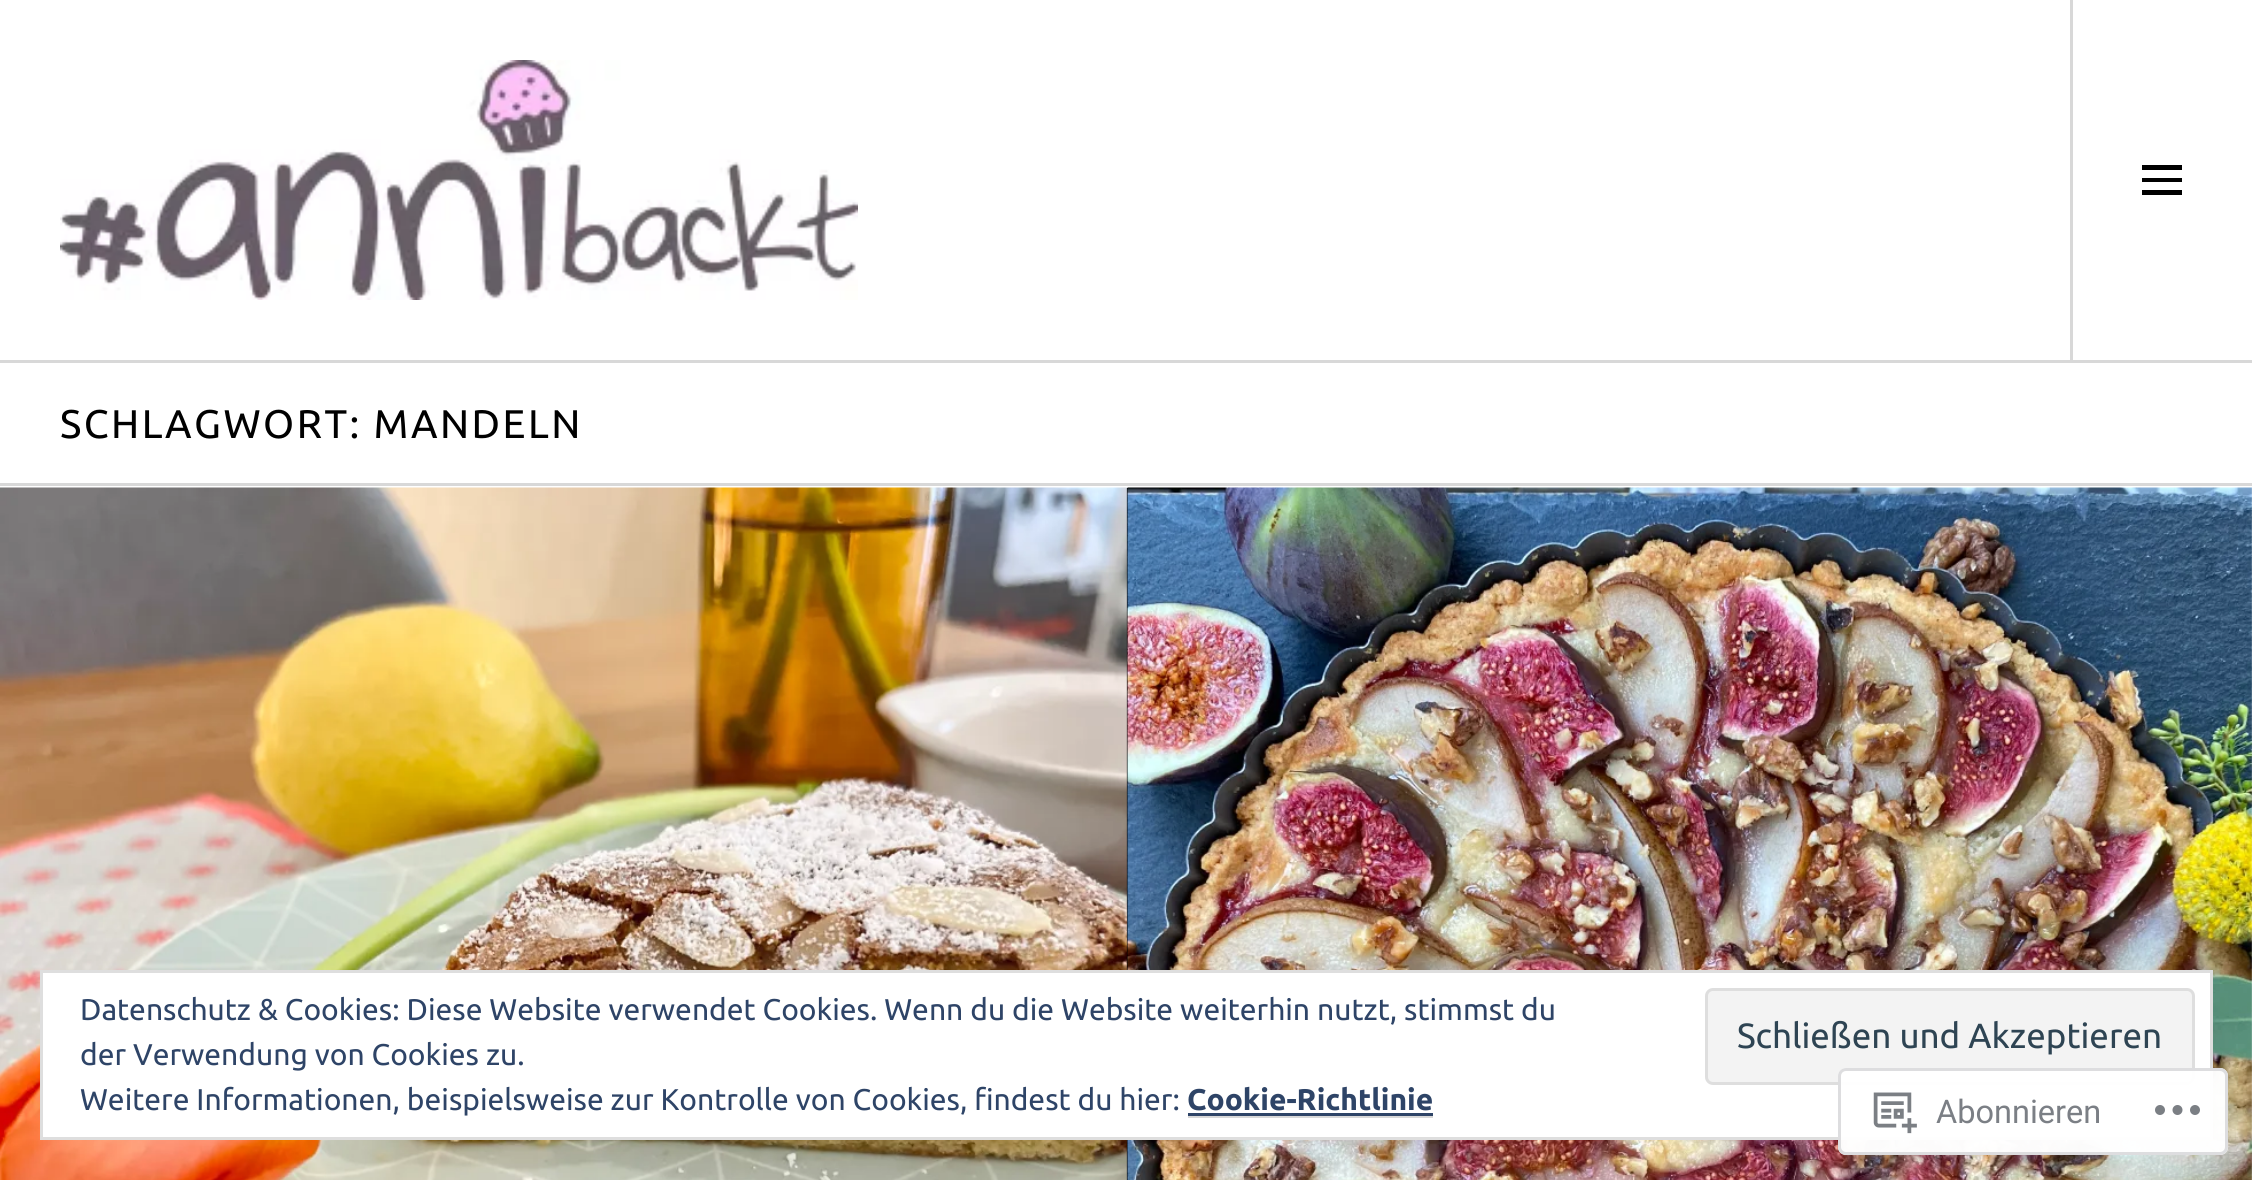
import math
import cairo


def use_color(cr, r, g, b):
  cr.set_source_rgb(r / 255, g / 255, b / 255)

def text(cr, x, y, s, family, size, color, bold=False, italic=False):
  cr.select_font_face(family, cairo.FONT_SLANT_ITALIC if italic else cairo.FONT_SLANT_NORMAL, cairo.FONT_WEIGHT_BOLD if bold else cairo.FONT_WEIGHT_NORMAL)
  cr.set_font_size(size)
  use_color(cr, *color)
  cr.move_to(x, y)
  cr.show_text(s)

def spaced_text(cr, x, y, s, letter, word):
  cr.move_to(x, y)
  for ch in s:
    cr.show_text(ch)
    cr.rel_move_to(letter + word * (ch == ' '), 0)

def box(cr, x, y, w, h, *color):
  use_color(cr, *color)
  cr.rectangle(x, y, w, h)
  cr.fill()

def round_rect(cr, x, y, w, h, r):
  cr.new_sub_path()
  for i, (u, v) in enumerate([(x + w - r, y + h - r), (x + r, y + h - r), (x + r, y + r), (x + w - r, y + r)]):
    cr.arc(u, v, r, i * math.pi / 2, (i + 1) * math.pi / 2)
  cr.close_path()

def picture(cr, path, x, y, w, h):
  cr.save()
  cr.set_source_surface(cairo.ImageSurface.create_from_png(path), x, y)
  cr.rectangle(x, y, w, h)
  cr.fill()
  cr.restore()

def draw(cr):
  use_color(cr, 255, 255, 255)
  cr.paint()
  box(cr, 0, 360, 2252, 3, 216, 216, 216)
  picture(cr, "img_01.png", 60, 60, 798, 240)
  box(cr, 2070, 0, 3, 360, 216, 216, 216)
  use_color(cr, 0, 0, 0)
  cr.new_path()
  cr.move_to(2142, 195)
  cr.line_to(2142, 190)
  cr.line_to(2182, 190)
  cr.line_to(2182, 195)
  cr.close_path()
  cr.move_to(2142, 165)
  cr.line_to(2182, 165)
  cr.line_to(2182, 170)
  cr.line_to(2142, 170)
  cr.close_path()
  cr.move_to(2142, 182)
  cr.line_to(2142, 178)
  cr.line_to(2182, 178)
  cr.line_to(2182, 182)
  cr.close_path()
  cr.fill()
  box(cr, 0, 483, 2252, 3, 216, 216, 216)
  box(cr, 1126, 488, 2, 692, 0, 0, 0)
  picture(cr, "img_02.png", 0, 487, 1127, 693)
  picture(cr, "img_03.png", 1127, 487, 1125, 693)
  use_color(cr, 255, 255, 255)
  cr.rectangle(41.5, 971.5, 2170, 167)
  cr.fill_preserve()
  use_color(cr, 222, 222, 222)
  cr.set_line_width(3)
  cr.stroke()
  use_color(cr, 243, 243, 243)
  round_rect(cr, 1706.5, 989.5, 487, 94, 6.5)
  cr.fill_preserve()
  use_color(cr, 222, 222, 222)
  cr.stroke()
  box(cr, 1188, 1116, 245, 2, 216, 216, 216)
  box(cr, 1188, 1113, 245, 3, 46, 68, 103)
  cr.set_source_rgba(1, 1, 1, 0.98)
  round_rect(cr, 1838, 1068, 390, 87, 8)
  cr.fill()
  round_rect(cr, 1839.5, 1069.5, 387, 84, 6.5)
  cr.set_source_rgba(0.863, 0.863, 0.871, 0.98)
  cr.stroke()
  picture(cr, "img_04.png", 1873, 1092, 44, 42)
  picture(cr, "img_05.png", 2155, 1105, 45, 10)
  cr.select_font_face("Ubuntu")
  cr.set_font_size(40)
  use_color(cr, 0, 0, 0)
  spaced_text(cr, 60, 438, "SCHLAGWORT: MANDELN", 2.5, 0)
  text(cr, 80, 1020, "Datenschutz & Cookies: Diese Website verwendet Cookies. Wenn du die Website weiterhin nutzt, stimmst du", "Ubuntu", 30, (46, 68, 103))
  text(cr, 80, 1065, "der Verwendung von Cookies zu.", "Ubuntu", 30, (46, 68, 103))
  text(cr, 1737, 1048, "Schließen und Akzeptieren", "Ubuntu", 35, (46, 68, 83))
  text(cr, 80, 1110, "Weitere Informationen, beispielsweise zur Kontrolle von Cookies, findest du hier:", "Ubuntu", 30, (46, 68, 103))
  text(cr, 1187, 1110, "Cookie-Richtlinie", "Ubuntu", 30, (46, 68, 103), bold=True)
  text(cr, 1936, 1123, "Abonnieren", "Roboto", 32.5, (123, 127, 133))


surface = cairo.ImageSurface(cairo.FORMAT_RGB24, 2252, 1180)
cr = cairo.Context(surface)
options = cairo.FontOptions()
options.set_hint_metrics(cairo.HINT_METRICS_OFF)
options.set_hint_style(cairo.HINT_STYLE_NONE)
cr.set_font_options(options)
cr.set_miter_limit(4)
draw(cr)
surface.write_to_png("out.png")
